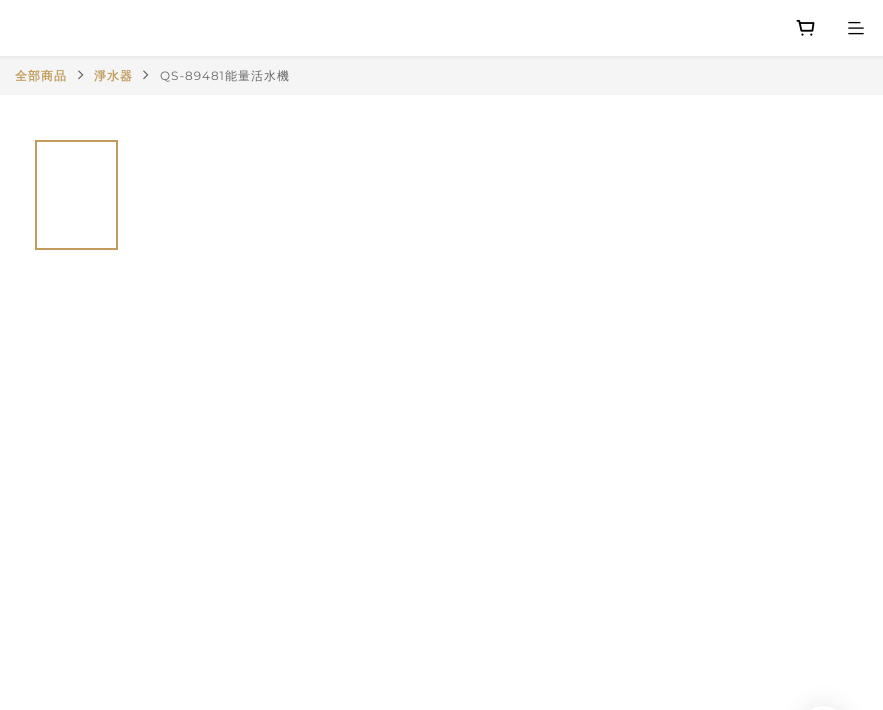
import math
import cairo


def use_color(cr, r, g, b):
  cr.set_source_rgb(r / 255, g / 255, b / 255)

def spaced_text(cr, x, y, s, letter, word):
  cr.move_to(x, y)
  for ch in s:
    cr.show_text(ch)
    cr.rel_move_to(letter + word * (ch == ' '), 0)

def box(cr, x, y, w, h, *color):
  use_color(cr, *color)
  cr.rectangle(x, y, w, h)
  cr.fill()

def round_rect(cr, x, y, w, h, r):
  cr.new_sub_path()
  for i, (u, v) in enumerate([(x + w - r, y + h - r), (x + r, y + h - r), (x + r, y + r), (x + w - r, y + r)]):
    cr.arc(u, v, r, i * math.pi / 2, (i + 1) * math.pi / 2)
  cr.close_path()

def shadow(cr, x, y, w, h, r, blur, alpha):
  cr.push_group_with_content(cairo.CONTENT_ALPHA)
  cr.set_operator(cairo.OPERATOR_SOURCE)
  for i in range(15, -16, -2):
    e = blur * i / 6
    if min(w, h) + 2 * e > 0:
      cr.set_source_rgba(0, 0, 0, alpha * math.erfc((i - 1) / 8.5) / 2)
      round_rect(cr, x - e, y - e, w + 2 * e, h + 2 * e, max(0, min(r + e + blur * .6, min(w, h) / 2 + e)))
      cr.fill()
  cr.mask(cr.pop_group())

def picture(cr, path, x, y, w, h):
  cr.save()
  cr.set_source_surface(cairo.ImageSurface.create_from_png(path), x, y)
  cr.rectangle(x, y, w, h)
  cr.fill()
  cr.restore()

def draw(cr):
  use_color(cr, 255, 255, 255)
  cr.paint()
  box(cr, 0, 56, 883, 39, 245, 245, 245)
  cr.save()
  cr.rectangle(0, 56, 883, 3)
  cr.clip()
  use_color(cr, 0, 0, 0)
  shadow(cr, 0, 2, 883, 56, 0, 3, 0.06)
  cr.restore()
  picture(cr, "img_01.png", 796, 19, 19, 17)
  picture(cr, "img_02.png", 848, 21, 16, 14)
  picture(cr, "img_03.png", 78, 70, 6, 10)
  picture(cr, "img_03.png", 143, 70, 6, 10)
  cr.rectangle(36, 141, 81, 108)
  use_color(cr, 193, 156, 92)
  cr.stroke()
  use_color(cr, 0, 0, 0)
  shadow(cr, 799, 707, 48, 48, 24, 12, 0.09)
  use_color(cr, 255, 255, 255)
  round_rect(cr, 799, 706, 48, 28, 24)
  cr.fill()
  cr.select_font_face("WenQuanYi Zen Hei", cairo.FONT_SLANT_NORMAL, cairo.FONT_WEIGHT_BOLD)
  cr.set_font_size(12)
  use_color(cr, 193, 156, 92)
  spaced_text(cr, 15, 80, "全部商品", 1, 0)
  spaced_text(cr, 94, 80, "淨水器", 1, 0)
  cr.select_font_face("Montserrat")
  use_color(cr, 102, 102, 102)
  spaced_text(cr, 160, 80, "QS-89481", 1, 0)
  cr.select_font_face("WenQuanYi Zen Hei Medium")
  spaced_text(cr, 225, 80, "能量活水機", 1, 0)


surface = cairo.ImageSurface(cairo.FORMAT_RGB24, 883, 710)
cr = cairo.Context(surface)
options = cairo.FontOptions()
options.set_hint_metrics(cairo.HINT_METRICS_OFF)
options.set_hint_style(cairo.HINT_STYLE_NONE)
cr.set_font_options(options)
cr.set_miter_limit(4)
draw(cr)
surface.write_to_png("out.png")
